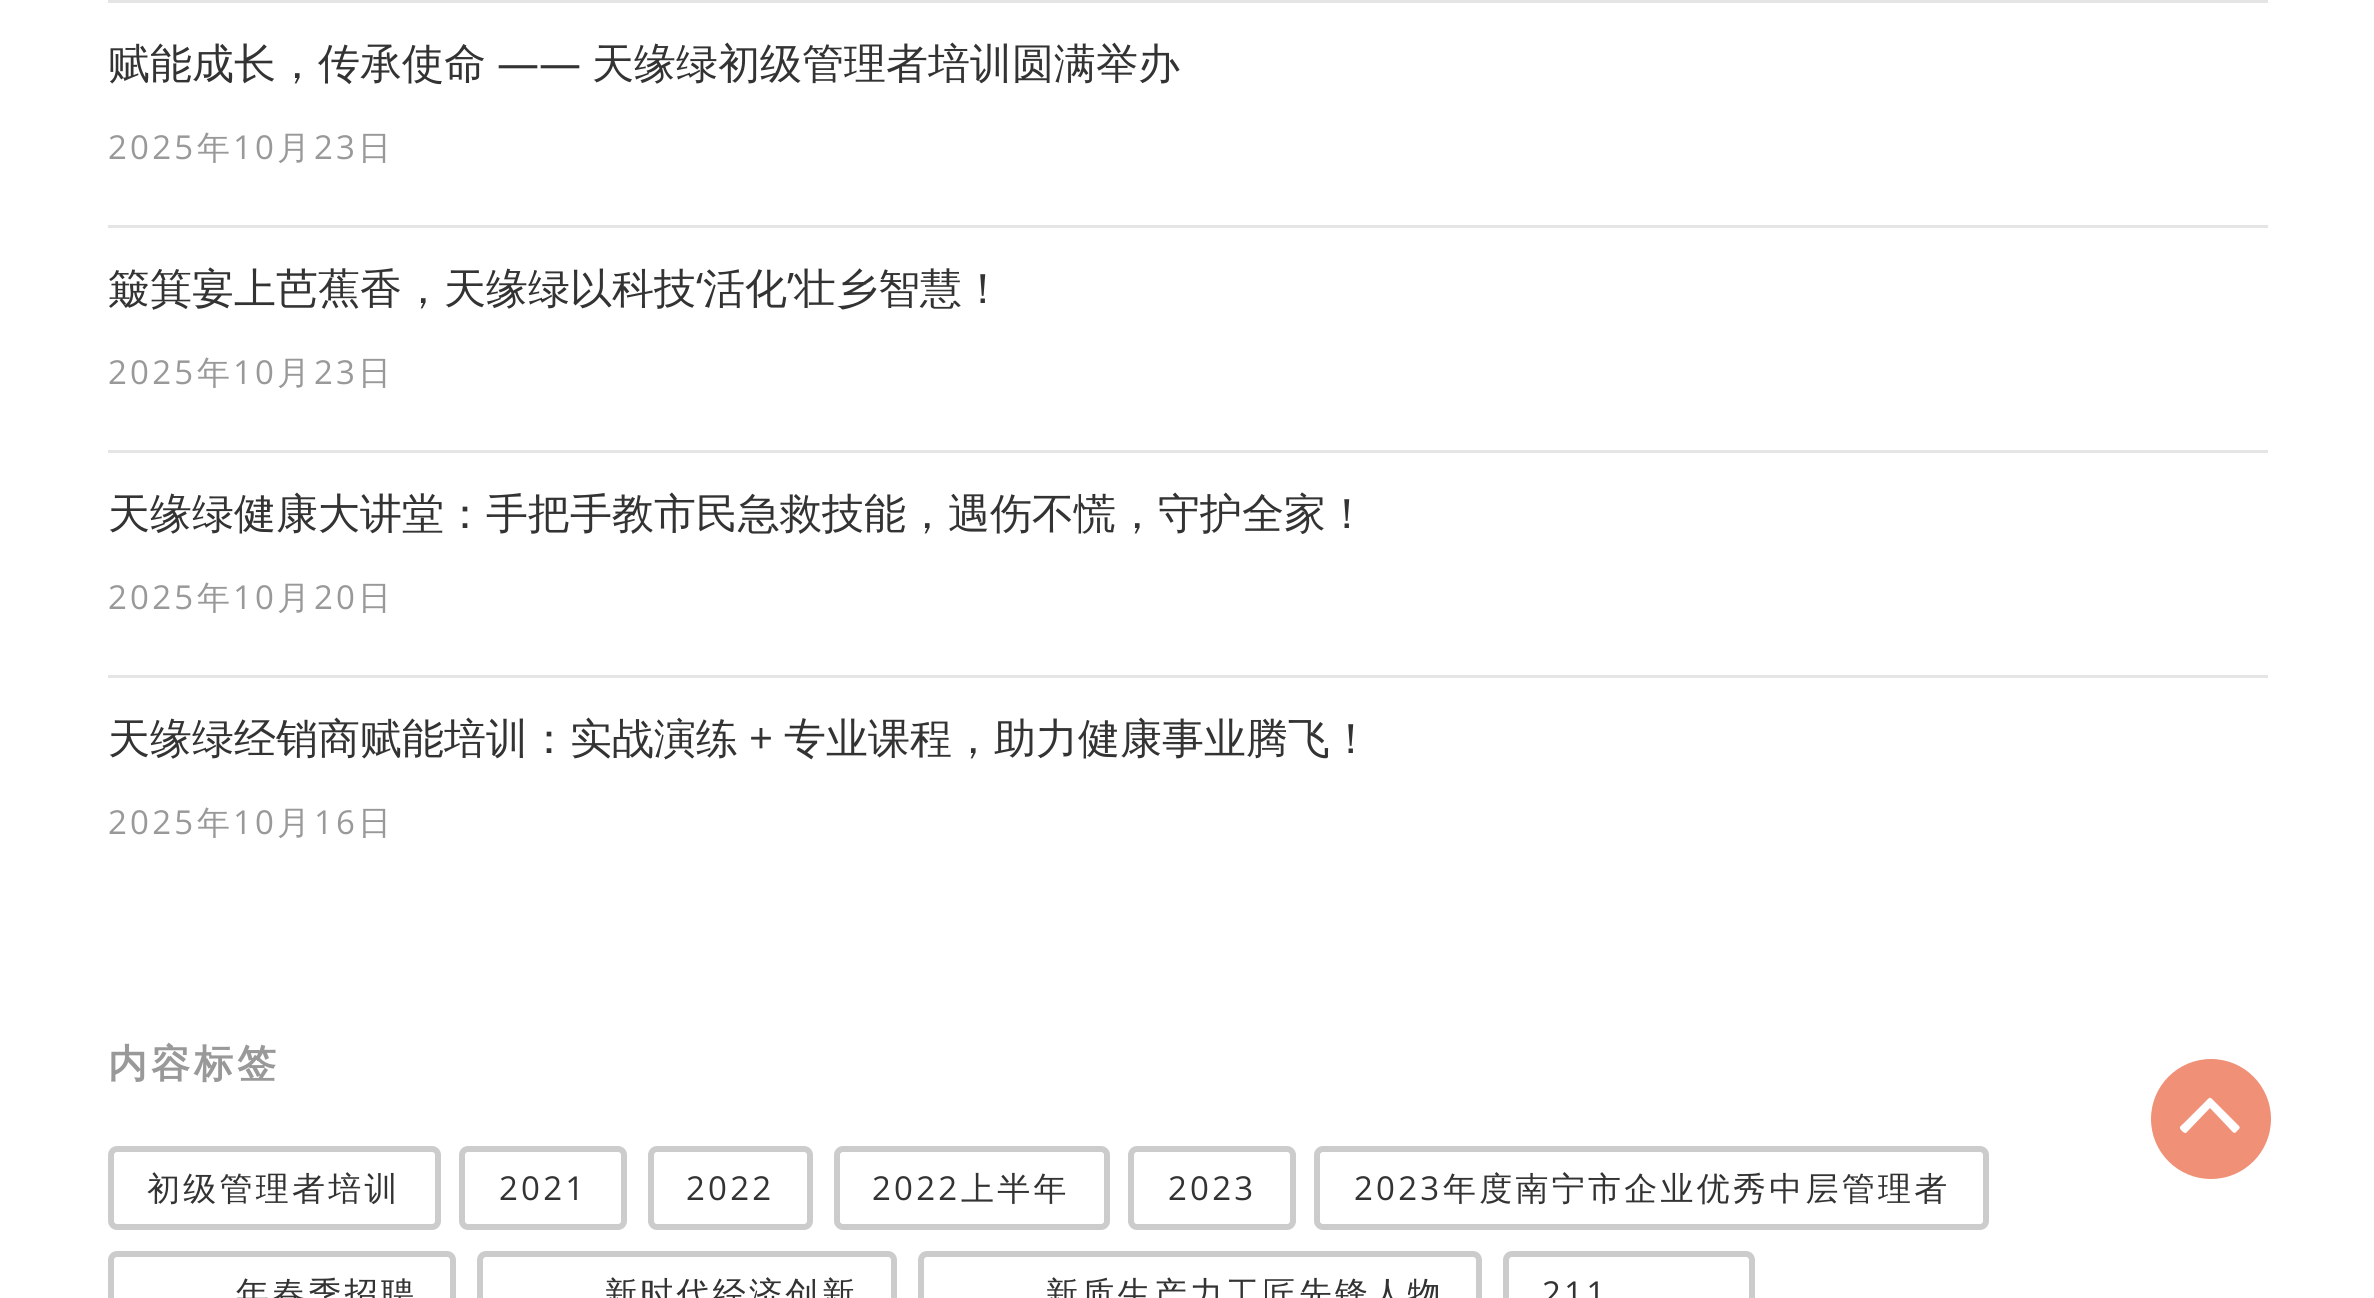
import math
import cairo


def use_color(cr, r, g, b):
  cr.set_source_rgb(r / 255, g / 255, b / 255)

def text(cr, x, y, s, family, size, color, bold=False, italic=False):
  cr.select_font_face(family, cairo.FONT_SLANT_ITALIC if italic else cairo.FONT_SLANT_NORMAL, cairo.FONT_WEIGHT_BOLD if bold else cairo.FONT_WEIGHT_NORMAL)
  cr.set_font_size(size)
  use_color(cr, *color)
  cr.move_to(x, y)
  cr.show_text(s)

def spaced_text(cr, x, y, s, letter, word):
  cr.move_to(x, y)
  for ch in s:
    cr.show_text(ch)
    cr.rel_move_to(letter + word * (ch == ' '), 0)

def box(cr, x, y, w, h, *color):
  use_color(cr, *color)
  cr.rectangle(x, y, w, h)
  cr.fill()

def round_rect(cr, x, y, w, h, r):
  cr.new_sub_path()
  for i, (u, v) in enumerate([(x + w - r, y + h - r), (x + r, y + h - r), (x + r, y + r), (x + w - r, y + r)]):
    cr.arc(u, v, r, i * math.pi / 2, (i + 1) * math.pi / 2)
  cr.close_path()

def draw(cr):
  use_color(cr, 255, 255, 255)
  cr.paint()
  box(cr, 108, 0, 2160, 3, 229, 229, 229)
  box(cr, 108, 225, 2160, 3, 229, 229, 229)
  box(cr, 108, 450, 2160, 3, 229, 229, 229)
  box(cr, 108, 675, 2160, 3, 229, 229, 229)
  round_rect(cr, 111, 1149, 327, 78, 6)
  use_color(cr, 204, 204, 204)
  cr.set_line_width(6)
  cr.stroke()
  round_rect(cr, 462, 1149, 162, 78, 6)
  cr.stroke()
  round_rect(cr, 651, 1149, 159, 78, 6)
  cr.stroke()
  round_rect(cr, 837, 1149, 270, 78, 6)
  cr.stroke()
  round_rect(cr, 1131, 1149, 162, 78, 6)
  cr.stroke()
  round_rect(cr, 1317, 1149, 669, 78, 6)
  cr.stroke()
  round_rect(cr, 111, 1254, 342, 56, 6)
  cr.stroke()
  round_rect(cr, 480, 1254, 414, 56, 6)
  cr.stroke()
  round_rect(cr, 921, 1254, 558, 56, 6)
  cr.stroke()
  round_rect(cr, 1506, 1254, 246, 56, 6)
  cr.stroke()
  use_color(cr, 240, 145, 119)
  cr.arc(2211, 1119, 60, 0, 2 * math.pi)
  cr.fill()
  use_color(cr, 255, 255, 255)
  cr.new_path()
  cr.move_to(2239, 1126)
  cr.curve_to(2241, 1128, 2238, 1130, 2237, 1131)
  cr.curve_to(2234, 1135, 2233, 1132, 2229, 1128)
  cr.line_to(2210, 1108)
  cr.line_to(2186, 1133)
  cr.curve_to(2184, 1133, 2183, 1132, 2182, 1131)
  cr.curve_to(2178, 1127, 2180, 1127, 2185, 1122)
  cr.line_to(2204, 1103)
  cr.curve_to(2211, 1096, 2209, 1096, 2216, 1103)
  cr.close_path()
  cr.fill()
  text(cr, 108, 78, "赋能成长，传承使命", "WenQuanYi Zen Hei Medium", 42, (51, 51, 51))
  text(cr, 497, 78, "——", "Open Sans", 42, (51, 51, 51))
  text(cr, 592, 78, "天缘绿初级管理者培训圆满举办", "WenQuanYi Zen Hei Medium", 42, (51, 51, 51))
  cr.select_font_face("Open Sans")
  cr.set_font_size(33)
  use_color(cr, 153, 153, 153)
  spaced_text(cr, 108, 159, "2025", 3.25, 0)
  cr.select_font_face("WenQuanYi Zen Hei Medium")
  spaced_text(cr, 197, 159, "年", 3.25, 0)
  cr.select_font_face("Open Sans")
  spaced_text(cr, 233, 159, "10", 3.25, 0)
  cr.select_font_face("WenQuanYi Zen Hei Medium")
  spaced_text(cr, 277, 159, "月", 3.25, 0)
  cr.select_font_face("Open Sans")
  spaced_text(cr, 314, 159, "23", 3.25, 0)
  cr.select_font_face("WenQuanYi Zen Hei Medium")
  spaced_text(cr, 358, 159, "日", 3.25, 0)
  text(cr, 108, 303, "簸箕宴上芭蕉香，天缘绿以科技", "WenQuanYi Zen Hei Medium", 42, (51, 51, 51))
  text(cr, 696, 303, "‘", "Open Sans", 42, (51, 51, 51))
  text(cr, 703, 303, "活化", "WenQuanYi Zen Hei Medium", 42, (51, 51, 51))
  text(cr, 787, 303, "’", "Open Sans", 42, (51, 51, 51))
  text(cr, 794, 303, "壮乡智慧！", "WenQuanYi Zen Hei Medium", 42, (51, 51, 51))
  cr.select_font_face("Open Sans")
  cr.set_font_size(33)
  use_color(cr, 153, 153, 153)
  spaced_text(cr, 108, 384, "2025", 3.25, 0)
  cr.select_font_face("WenQuanYi Zen Hei Medium")
  spaced_text(cr, 197, 384, "年", 3.25, 0)
  cr.select_font_face("Open Sans")
  spaced_text(cr, 233, 384, "10", 3.25, 0)
  cr.select_font_face("WenQuanYi Zen Hei Medium")
  spaced_text(cr, 277, 384, "月", 3.25, 0)
  cr.select_font_face("Open Sans")
  spaced_text(cr, 314, 384, "23", 3.25, 0)
  cr.select_font_face("WenQuanYi Zen Hei Medium")
  spaced_text(cr, 358, 384, "日", 3.25, 0)
  text(cr, 108, 528, "天缘绿健康大讲堂：手把手教市民急救技能，遇伤不慌，守护全家！", "WenQuanYi Zen Hei Medium", 42, (51, 51, 51))
  cr.select_font_face("Open Sans")
  cr.set_font_size(33)
  use_color(cr, 153, 153, 153)
  spaced_text(cr, 108, 609, "2025", 3.25, 0)
  cr.select_font_face("WenQuanYi Zen Hei Medium")
  spaced_text(cr, 197, 609, "年", 3.25, 0)
  cr.select_font_face("Open Sans")
  spaced_text(cr, 233, 609, "10", 3.25, 0)
  cr.select_font_face("WenQuanYi Zen Hei Medium")
  spaced_text(cr, 277, 609, "月", 3.25, 0)
  cr.select_font_face("Open Sans")
  spaced_text(cr, 314, 609, "20", 3.25, 0)
  cr.select_font_face("WenQuanYi Zen Hei Medium")
  spaced_text(cr, 358, 609, "日", 3.25, 0)
  text(cr, 108, 753, "天缘绿经销商赋能培训：实战演练", "WenQuanYi Zen Hei Medium", 42, (51, 51, 51))
  text(cr, 749, 753, "+", "Open Sans", 42, (51, 51, 51))
  text(cr, 784, 753, "专业课程，助力健康事业腾飞！", "WenQuanYi Zen Hei Medium", 42, (51, 51, 51))
  cr.select_font_face("Open Sans")
  cr.set_font_size(33)
  use_color(cr, 153, 153, 153)
  spaced_text(cr, 108, 834, "2025", 3.25, 0)
  cr.select_font_face("WenQuanYi Zen Hei Medium")
  spaced_text(cr, 197, 834, "年", 3.25, 0)
  cr.select_font_face("Open Sans")
  spaced_text(cr, 233, 834, "10", 3.25, 0)
  cr.select_font_face("WenQuanYi Zen Hei Medium")
  spaced_text(cr, 277, 834, "月", 3.25, 0)
  cr.select_font_face("Open Sans")
  spaced_text(cr, 314, 834, "16", 3.25, 0)
  cr.select_font_face("WenQuanYi Zen Hei Medium")
  spaced_text(cr, 358, 834, "日", 3.25, 0)
  cr.select_font_face("WenQuanYi Zen Hei", cairo.FONT_SLANT_NORMAL, cairo.FONT_WEIGHT_BOLD)
  cr.set_font_size(39)
  spaced_text(cr, 108, 1077, "内容标签", 4, 0)
  cr.select_font_face("WenQuanYi Zen Hei Medium")
  cr.set_font_size(33)
  use_color(cr, 51, 51, 51)
  spaced_text(cr, 147, 1200, "初级管理者培训", 3.25, 0)
  cr.select_font_face("Open Sans")
  spaced_text(cr, 499, 1200, "2021", 3.25, 0)
  spaced_text(cr, 686, 1200, "2022", 3.25, 0)
  spaced_text(cr, 872, 1200, "2022", 3.25, 0)
  cr.select_font_face("WenQuanYi Zen Hei Medium")
  spaced_text(cr, 961, 1200, "上半年", 3.25, 0)
  cr.select_font_face("Open Sans")
  spaced_text(cr, 1168, 1200, "2023", 3.25, 0)
  spaced_text(cr, 1354, 1200, "2023", 3.25, 0)
  cr.select_font_face("WenQuanYi Zen Hei Medium")
  spaced_text(cr, 1443, 1200, "年度南宁市企业优秀中层管理者", 3.25, 0)
  spaced_text(cr, 236, 1305, "年春季招聘", 3.25, 0)
  spaced_text(cr, 604, 1305, "新时代经济创新", 3.25, 0)
  spaced_text(cr, 1045, 1305, "新质生产力工匠先锋人物", 3.25, 0)
  cr.select_font_face("Open Sans")
  spaced_text(cr, 1542, 1305, "211", 3.25, 0)


surface = cairo.ImageSurface(cairo.FORMAT_RGB24, 2374, 1298)
cr = cairo.Context(surface)
options = cairo.FontOptions()
options.set_hint_metrics(cairo.HINT_METRICS_OFF)
options.set_hint_style(cairo.HINT_STYLE_NONE)
cr.set_font_options(options)
cr.set_miter_limit(4)
draw(cr)
surface.write_to_png("out.png")
